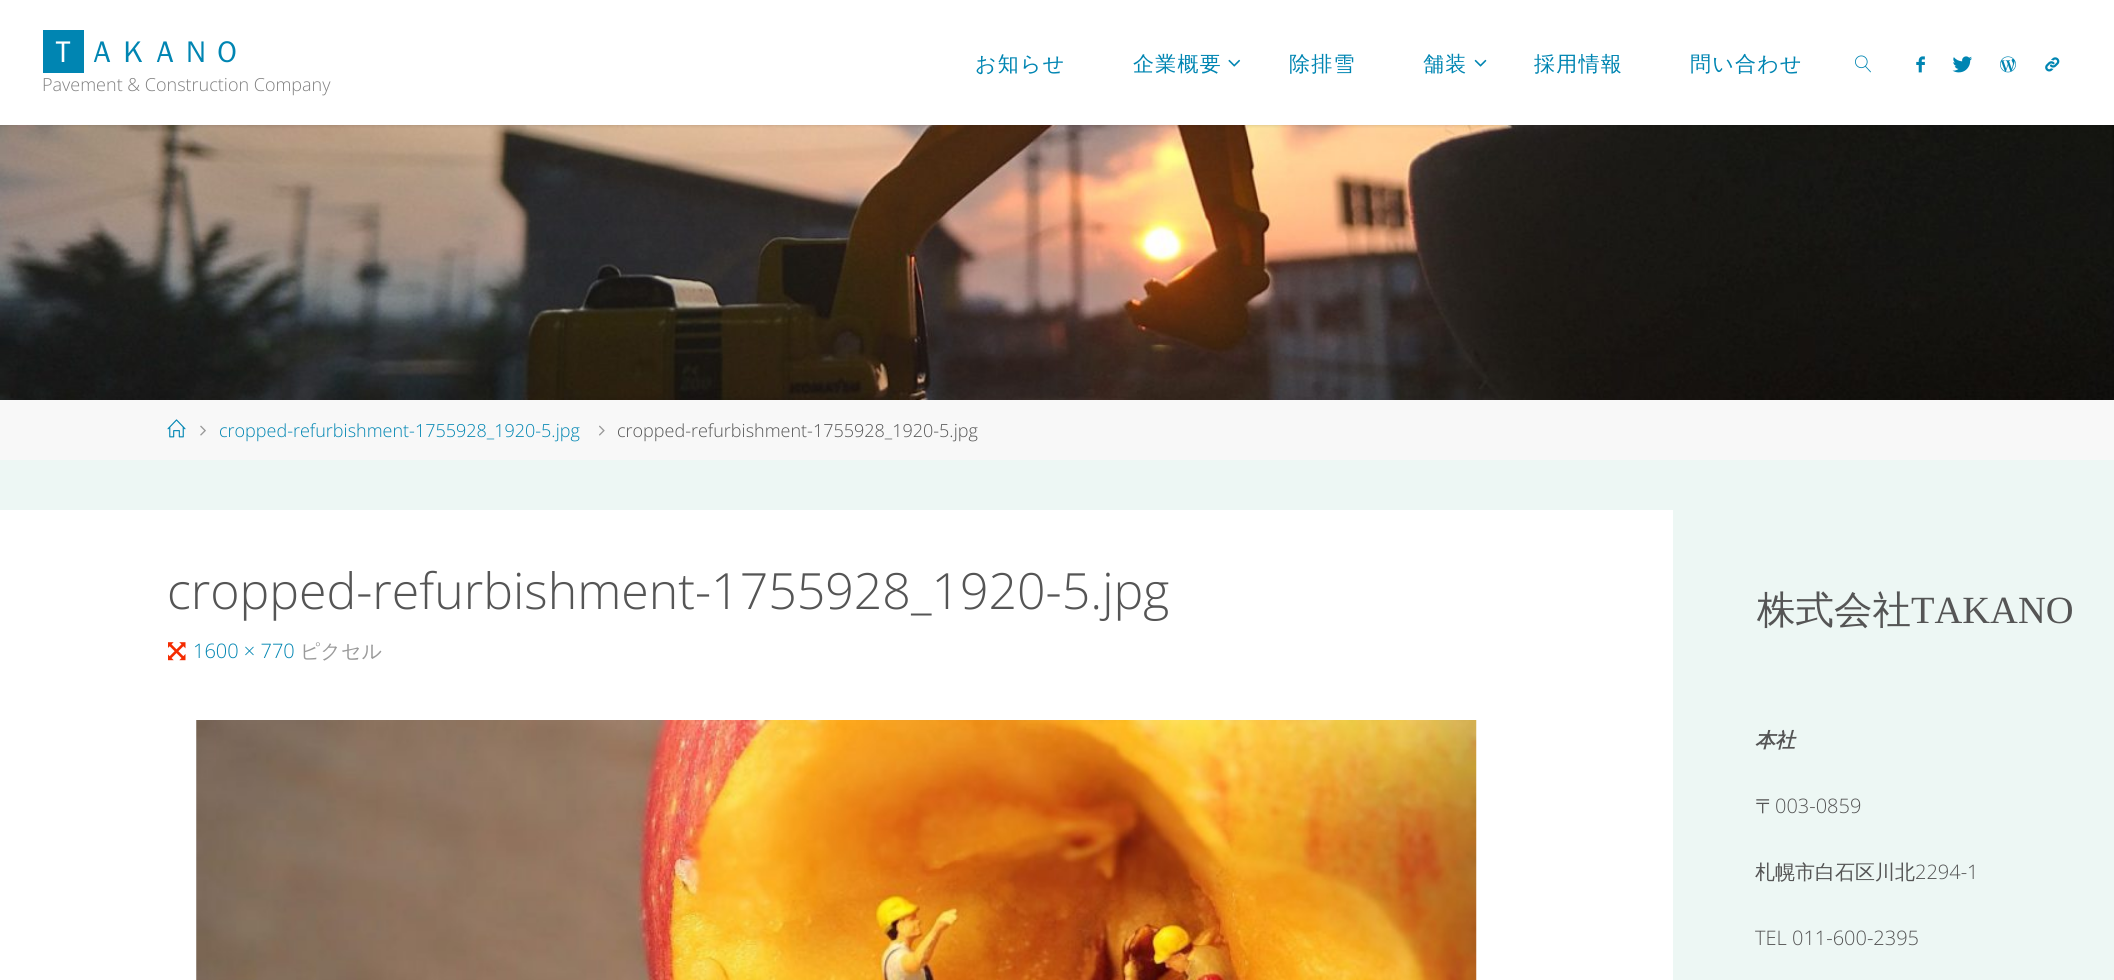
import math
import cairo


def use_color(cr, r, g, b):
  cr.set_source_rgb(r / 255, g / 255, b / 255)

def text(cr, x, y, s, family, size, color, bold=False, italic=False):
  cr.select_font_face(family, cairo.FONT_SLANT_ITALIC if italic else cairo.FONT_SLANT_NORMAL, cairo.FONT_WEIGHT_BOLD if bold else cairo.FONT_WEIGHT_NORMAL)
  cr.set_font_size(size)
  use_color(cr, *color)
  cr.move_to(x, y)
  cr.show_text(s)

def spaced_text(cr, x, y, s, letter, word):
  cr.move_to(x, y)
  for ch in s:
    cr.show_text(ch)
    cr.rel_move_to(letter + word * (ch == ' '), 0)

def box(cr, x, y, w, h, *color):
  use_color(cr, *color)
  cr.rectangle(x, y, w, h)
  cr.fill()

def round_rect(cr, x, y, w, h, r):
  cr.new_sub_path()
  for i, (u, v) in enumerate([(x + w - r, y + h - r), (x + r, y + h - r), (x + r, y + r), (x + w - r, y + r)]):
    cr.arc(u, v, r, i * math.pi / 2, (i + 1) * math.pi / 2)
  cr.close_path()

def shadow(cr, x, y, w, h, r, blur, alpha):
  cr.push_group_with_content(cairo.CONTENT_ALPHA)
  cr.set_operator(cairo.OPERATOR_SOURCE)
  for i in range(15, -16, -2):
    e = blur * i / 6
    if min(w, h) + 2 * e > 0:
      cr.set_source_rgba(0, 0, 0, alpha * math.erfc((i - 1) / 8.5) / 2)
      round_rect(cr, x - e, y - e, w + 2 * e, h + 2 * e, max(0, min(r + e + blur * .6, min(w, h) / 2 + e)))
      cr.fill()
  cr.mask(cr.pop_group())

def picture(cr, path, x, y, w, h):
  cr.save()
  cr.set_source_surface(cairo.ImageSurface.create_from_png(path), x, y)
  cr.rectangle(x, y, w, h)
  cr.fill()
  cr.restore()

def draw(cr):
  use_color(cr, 237, 247, 244)
  cr.paint()
  picture(cr, "img_08.png", 0, 125, 2114, 275)
  use_color(cr, 0, 0, 0)
  shadow(cr, 0, 0, 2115, 125, 0, 2, 0.2)
  box(cr, 0, 0, 2114, 125, 255, 255, 255)
  box(cr, 43, 30, 41, 43, 0, 133, 178)
  picture(cr, "img_01.png", 1228, 59, 13, 8)
  picture(cr, "img_02.png", 1474, 59, 13, 8)
  picture(cr, "img_03.png", 1855, 55, 16, 18)
  picture(cr, "img_04.png", 1916, 56, 9, 17)
  picture(cr, "img_05.png", 1952, 56, 20, 17)
  picture(cr, "img_06.png", 2000, 56, 16, 17)
  picture(cr, "img_07.png", 2045, 57, 15, 15)
  box(cr, 0, 400, 2114, 60, 248, 248, 248)
  picture(cr, "img_09.png", 167, 419, 19, 19)
  picture(cr, "img_10.png", 200, 425, 6, 11)
  picture(cr, "img_11.png", 599, 425, 6, 11)
  box(cr, 0, 510, 1673, 470, 255, 255, 255)
  picture(cr, "img_12.png", 168, 642, 18, 19)
  picture(cr, "img_13.png", 196, 720, 1281, 260)
  text(cr, 48, 62, "Ｔ", "WenQuanYi Zen Hei Medium", 30, (255, 255, 255))
  text(cr, 87, 62, "Ａ", "WenQuanYi Zen Hei Medium", 30, (0, 133, 178))
  text(cr, 119, 62, "Ｋ", "WenQuanYi Zen Hei Medium", 30, (0, 133, 178))
  text(cr, 150, 62, "Ａ", "WenQuanYi Zen Hei Medium", 30, (0, 133, 178))
  text(cr, 181, 62, "Ｎ", "WenQuanYi Zen Hei Medium", 30, (0, 133, 178))
  text(cr, 212, 62, "Ｏ", "WenQuanYi Zen Hei Medium", 30, (0, 133, 178))
  text(cr, 42, 91, "Pavement & Construction Company", "Open Sans Light", 18, (128, 128, 128))
  cr.select_font_face("WenQuanYi Zen Hei Medium")
  cr.set_font_size(21)
  use_color(cr, 0, 133, 178)
  spaced_text(cr, 975, 71, "お知らせ", 1.25, 0)
  spaced_text(cr, 1133, 71, "企業概要", 1.25, 0)
  spaced_text(cr, 1289, 71, "除排雪", 1.25, 0)
  spaced_text(cr, 1423, 71, "舗装", 1.25, 0)
  spaced_text(cr, 1534, 71, "採用情報", 1.25, 0)
  spaced_text(cr, 1690, 71, "問い合わせ", 1.25, 0)
  text(cr, 219, 437, "cropped-refurbishment-1755928_1920-5.jpg", "Open Sans Light", 18, (0, 133, 178))
  text(cr, 617, 437, "cropped-refurbishment-1755928_1920-5.jpg", "Open Sans Light", 18, (85, 85, 85))
  text(cr, 167, 609, "cropped-refurbishment-1755928_1920-5.jpg", "Open Sans Light", 50, (85, 85, 85))
  text(cr, 193, 658, "1600 × 770", "Open Sans Light", 20, (0, 133, 178))
  text(cr, 300, 658, "ピクセル", "WenQuanYi Zen Hei Medium", 20, (154, 154, 154))
  text(cr, 1757, 623, "株式会社", "WenQuanYi Zen Hei Medium", 38.5, (85, 85, 85))
  text(cr, 1911, 623, "TAKANO", "Liberation Serif", 38.5, (85, 85, 85))
  text(cr, 1755, 747, "本社", "WenQuanYi Zen Hei", 20, (85, 85, 85), bold=True, italic=True)
  text(cr, 1755, 813, "〒", "WenQuanYi Zen Hei Medium", 20, (85, 85, 85))
  text(cr, 1775, 813, "003-0859", "Open Sans Light", 20, (85, 85, 85))
  text(cr, 1755, 879, "札幌市白石区川北", "WenQuanYi Zen Hei Medium", 20, (85, 85, 85))
  text(cr, 1915, 879, "2294-1", "Open Sans Light", 20, (85, 85, 85))
  text(cr, 1755, 945, "TEL 011-600-2395", "Open Sans Light", 20, (85, 85, 85))


surface = cairo.ImageSurface(cairo.FORMAT_RGB24, 2114, 980)
cr = cairo.Context(surface)
options = cairo.FontOptions()
options.set_hint_metrics(cairo.HINT_METRICS_OFF)
options.set_hint_style(cairo.HINT_STYLE_NONE)
cr.set_font_options(options)
cr.set_miter_limit(4)
draw(cr)
surface.write_to_png("out.png")
